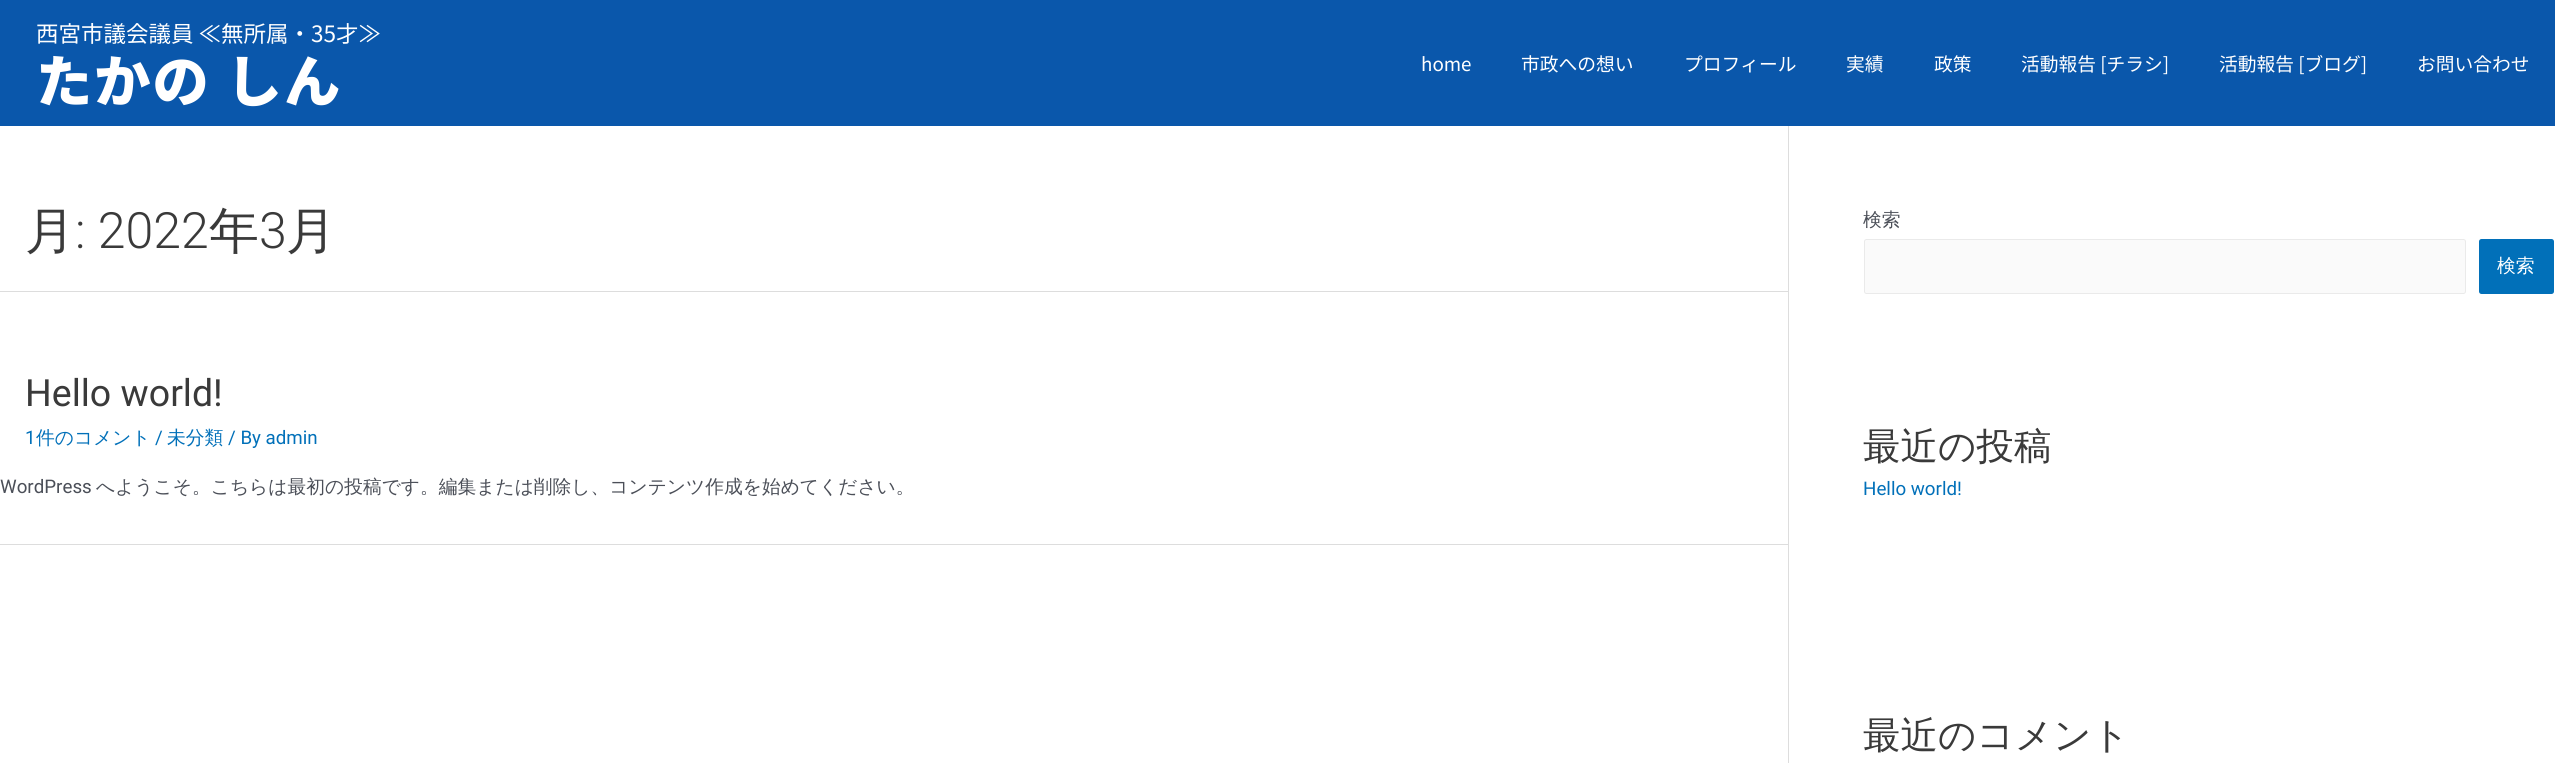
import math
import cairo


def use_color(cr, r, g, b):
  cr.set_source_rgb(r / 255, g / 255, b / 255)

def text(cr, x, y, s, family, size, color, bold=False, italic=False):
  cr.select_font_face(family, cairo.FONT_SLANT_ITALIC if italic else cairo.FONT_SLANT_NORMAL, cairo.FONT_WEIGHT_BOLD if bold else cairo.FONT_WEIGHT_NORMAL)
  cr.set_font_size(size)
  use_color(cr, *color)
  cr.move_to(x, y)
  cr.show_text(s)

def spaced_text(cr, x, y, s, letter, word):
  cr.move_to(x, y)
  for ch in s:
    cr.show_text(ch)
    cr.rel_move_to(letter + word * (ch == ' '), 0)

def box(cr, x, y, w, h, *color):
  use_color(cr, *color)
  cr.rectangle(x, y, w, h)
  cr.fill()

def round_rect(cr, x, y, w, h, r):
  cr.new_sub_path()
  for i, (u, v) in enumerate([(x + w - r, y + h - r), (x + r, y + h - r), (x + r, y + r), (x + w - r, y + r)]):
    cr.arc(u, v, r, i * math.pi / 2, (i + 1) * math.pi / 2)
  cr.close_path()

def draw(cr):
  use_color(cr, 255, 255, 255)
  cr.paint()
  box(cr, 0, 0, 2555, 126, 10, 87, 171)
  box(cr, 1788, 126, 1, 637, 221, 221, 221)
  box(cr, 0, 291, 1788, 1, 221, 221, 221)
  box(cr, 0, 544, 1788, 1, 221, 221, 221)
  use_color(cr, 250, 250, 250)
  round_rect(cr, 1864.5, 239.5, 601, 54, 2)
  cr.fill_preserve()
  use_color(cr, 234, 234, 234)
  cr.set_line_width(1)
  cr.stroke()
  use_color(cr, 1, 112, 185)
  round_rect(cr, 2479, 239, 75, 55, 2.5)
  cr.fill()
  text(cr, 36, 42, "西宮市議会議員 ≪無所属・35才≫", "Noto Sans JP", 22.5, (255, 255, 255))
  cr.select_font_face("Noto Sans JP Black")
  cr.set_font_size(56.25)
  spaced_text(cr, 36, 102, "たかの しん", 2, 0)
  text(cr, 1421, 71, "home", "Noto Sans JP", 18.75, (255, 255, 255))
  text(cr, 1521, 71, "市政への想い", "Noto Sans JP", 18.75, (255, 255, 255))
  text(cr, 1684, 71, "プロフィール", "Noto Sans JP", 18.75, (255, 255, 255))
  text(cr, 1846, 71, "実績", "Noto Sans JP", 18.75, (255, 255, 255))
  text(cr, 1934, 71, "政策", "Noto Sans JP", 18.75, (255, 255, 255))
  text(cr, 2021, 71, "活動報告 [チラシ]", "Noto Sans JP", 18.75, (255, 255, 255))
  text(cr, 2219, 71, "活動報告 [ブログ]", "Noto Sans JP", 18.75, (255, 255, 255))
  text(cr, 2417, 71, "お問い合わせ", "Noto Sans JP", 18.75, (255, 255, 255))
  text(cr, 25, 248, "月", "WenQuanYi Zen Hei Medium", 50, (58, 58, 58))
  text(cr, 75, 248, ": 2022", "Roboto Light", 50, (58, 58, 58))
  text(cr, 209, 248, "年", "WenQuanYi Zen Hei Medium", 50, (58, 58, 58))
  text(cr, 259, 248, "3", "Roboto Light", 50, (58, 58, 58))
  text(cr, 286, 248, "月", "WenQuanYi Zen Hei Medium", 50, (58, 58, 58))
  text(cr, 25, 406, "Hello world!", "Roboto", 37.5, (58, 58, 58))
  text(cr, 25, 444, "1", "Roboto", 18.75, (1, 112, 185))
  text(cr, 36, 444, "件のコメント", "WenQuanYi Zen Hei Medium", 18.75, (1, 112, 185))
  text(cr, 155, 444, "/", "Roboto", 18.75, (1, 112, 185))
  text(cr, 167, 444, "未分類", "WenQuanYi Zen Hei Medium", 18.75, (1, 112, 185))
  text(cr, 228, 444, "/ By admin", "Roboto", 18.75, (1, 112, 185))
  text(cr, 0, 493, "WordPress", "Roboto", 18.75, (75, 79, 88))
  text(cr, 96, 493, "へようこそ。こちらは最初の投稿です。編集または削除し、コンテンツ作成を始めてください。", "WenQuanYi Zen Hei Medium", 18.75, (75, 79, 88))
  text(cr, 1863, 226, "検索", "WenQuanYi Zen Hei Medium", 18.75, (75, 79, 88))
  text(cr, 2497, 272, "検索", "WenQuanYi Zen Hei Medium", 18.75, (255, 255, 255))
  text(cr, 1863, 459, "最近の投稿", "WenQuanYi Zen Hei Medium", 37.5, (58, 58, 58))
  text(cr, 1863, 495, "Hello world!", "Roboto", 18.75, (1, 112, 185))
  text(cr, 1863, 748, "最近のコメント", "WenQuanYi Zen Hei Medium", 37.5, (58, 58, 58))


surface = cairo.ImageSurface(cairo.FORMAT_RGB24, 2555, 763)
cr = cairo.Context(surface)
options = cairo.FontOptions()
options.set_hint_metrics(cairo.HINT_METRICS_OFF)
options.set_hint_style(cairo.HINT_STYLE_NONE)
cr.set_font_options(options)
cr.set_miter_limit(4)
draw(cr)
surface.write_to_png("out.png")
